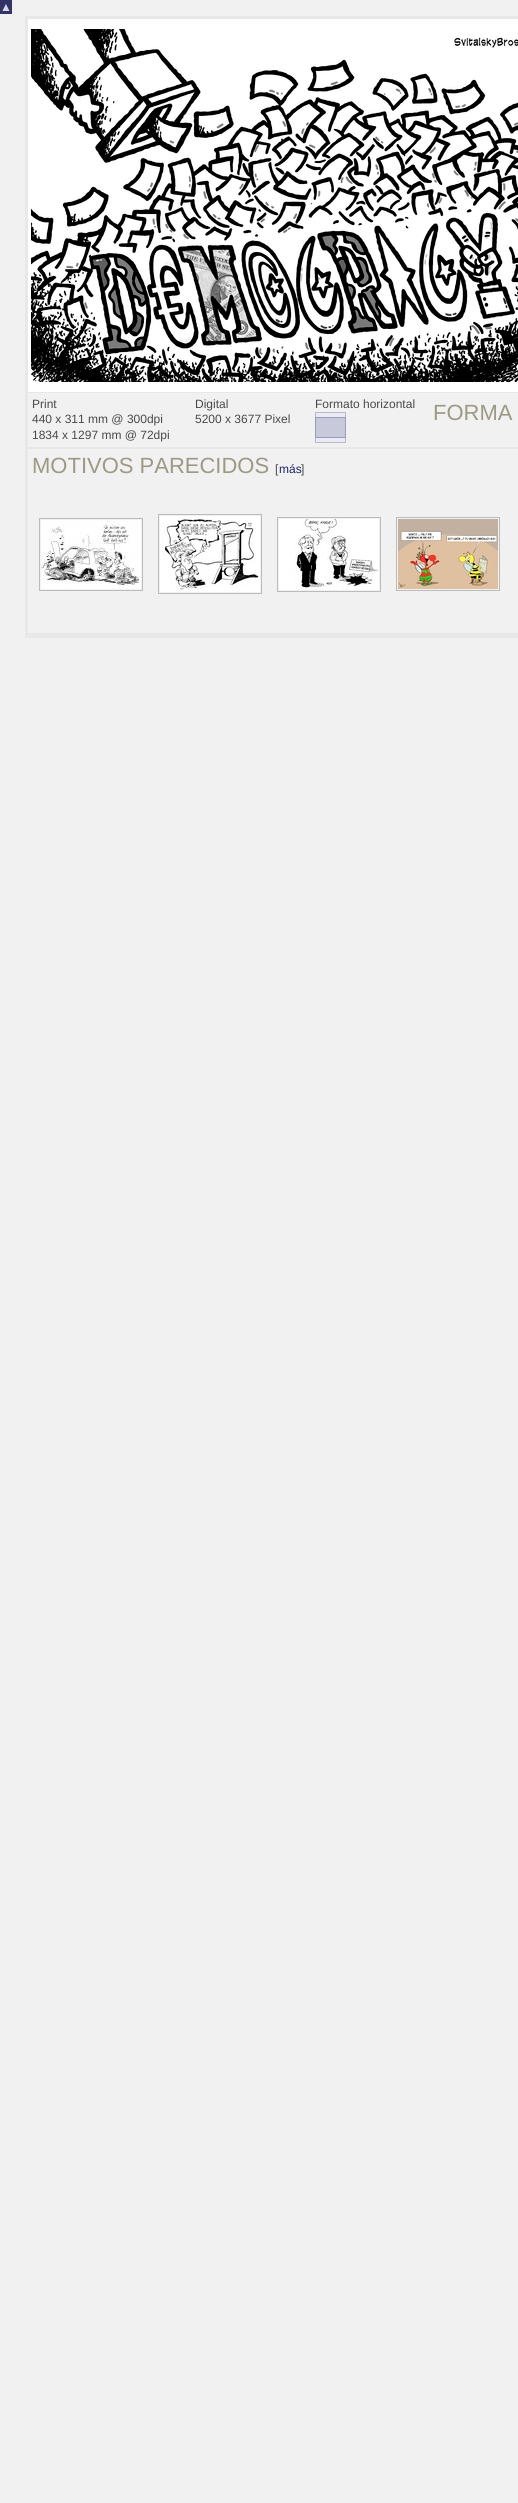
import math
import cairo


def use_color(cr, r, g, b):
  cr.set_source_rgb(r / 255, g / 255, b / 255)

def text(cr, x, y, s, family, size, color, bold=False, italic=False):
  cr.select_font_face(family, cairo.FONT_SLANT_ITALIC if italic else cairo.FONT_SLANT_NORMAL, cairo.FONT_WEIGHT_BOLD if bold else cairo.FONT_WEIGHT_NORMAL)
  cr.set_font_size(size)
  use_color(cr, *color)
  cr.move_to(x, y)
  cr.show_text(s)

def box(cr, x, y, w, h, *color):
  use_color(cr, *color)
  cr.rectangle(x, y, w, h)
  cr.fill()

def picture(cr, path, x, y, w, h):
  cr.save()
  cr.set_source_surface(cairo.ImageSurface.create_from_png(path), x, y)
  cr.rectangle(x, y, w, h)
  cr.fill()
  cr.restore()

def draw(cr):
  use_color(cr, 241, 241, 241)
  cr.paint()
  box(cr, 0, 0, 12, 14, 51, 51, 102)
  box(cr, 25, 16, 493, 622, 232, 232, 232)
  box(cr, 28, 19, 490, 373, 255, 255, 255)
  picture(cr, "img_01.png", 31, 29, 487, 353)
  box(cr, 28, 393, 490, 54, 241, 241, 241)
  picture(cr, "img_02.png", 315, 412, 31, 31)
  box(cr, 28, 449, 490, 184, 241, 241, 241)
  cr.rectangle(39.5, 518.5, 103, 72)
  use_color(cr, 187, 187, 187)
  cr.set_line_width(1)
  cr.stroke()
  picture(cr, "img_03.png", 41, 520, 100, 69)
  cr.rectangle(158.5, 514.5, 103, 79)
  cr.stroke()
  picture(cr, "img_04.png", 160, 516, 100, 76)
  cr.rectangle(277.5, 517.5, 103, 74)
  cr.stroke()
  picture(cr, "img_05.png", 279, 519, 100, 71)
  cr.rectangle(396.5, 517.5, 103, 73)
  cr.stroke()
  picture(cr, "img_06.png", 398, 519, 100, 70)
  text(cr, 0, 11, "▲", "Liberation Sans", 12, (216, 217, 229))
  text(cr, 32, 408, "Print", "Liberation Sans", 12, (73, 73, 73))
  text(cr, 32, 423, "440 x 311 mm @ 300dpi", "Liberation Sans", 12, (73, 73, 73))
  text(cr, 32, 439, "1834 x 1297 mm @ 72dpi", "Liberation Sans", 12, (73, 73, 73))
  text(cr, 195, 408, "Digital", "Liberation Sans", 12, (73, 73, 73))
  text(cr, 195, 423, "5200 x 3677 Pixel", "Liberation Sans", 12, (73, 73, 73))
  text(cr, 315, 408, "Formato horizontal", "Liberation Sans", 12, (73, 73, 73))
  text(cr, 433, 420, "FORMA", "Liberation Sans", 22, (156, 153, 132))
  text(cr, 32, 473, "MOTIVOS PARECIDOS", "Liberation Sans", 22, (156, 153, 132))
  text(cr, 275, 473, "[", "Liberation Sans", 12, (73, 73, 73))
  text(cr, 279, 473, "más", "Liberation Sans", 12, (29, 36, 108))
  text(cr, 301, 473, "]", "Liberation Sans", 12, (73, 73, 73))


surface = cairo.ImageSurface(cairo.FORMAT_RGB24, 518, 2503)
cr = cairo.Context(surface)
options = cairo.FontOptions()
options.set_hint_metrics(cairo.HINT_METRICS_OFF)
options.set_hint_style(cairo.HINT_STYLE_NONE)
cr.set_font_options(options)
cr.set_miter_limit(4)
draw(cr)
surface.write_to_png("out.png")
